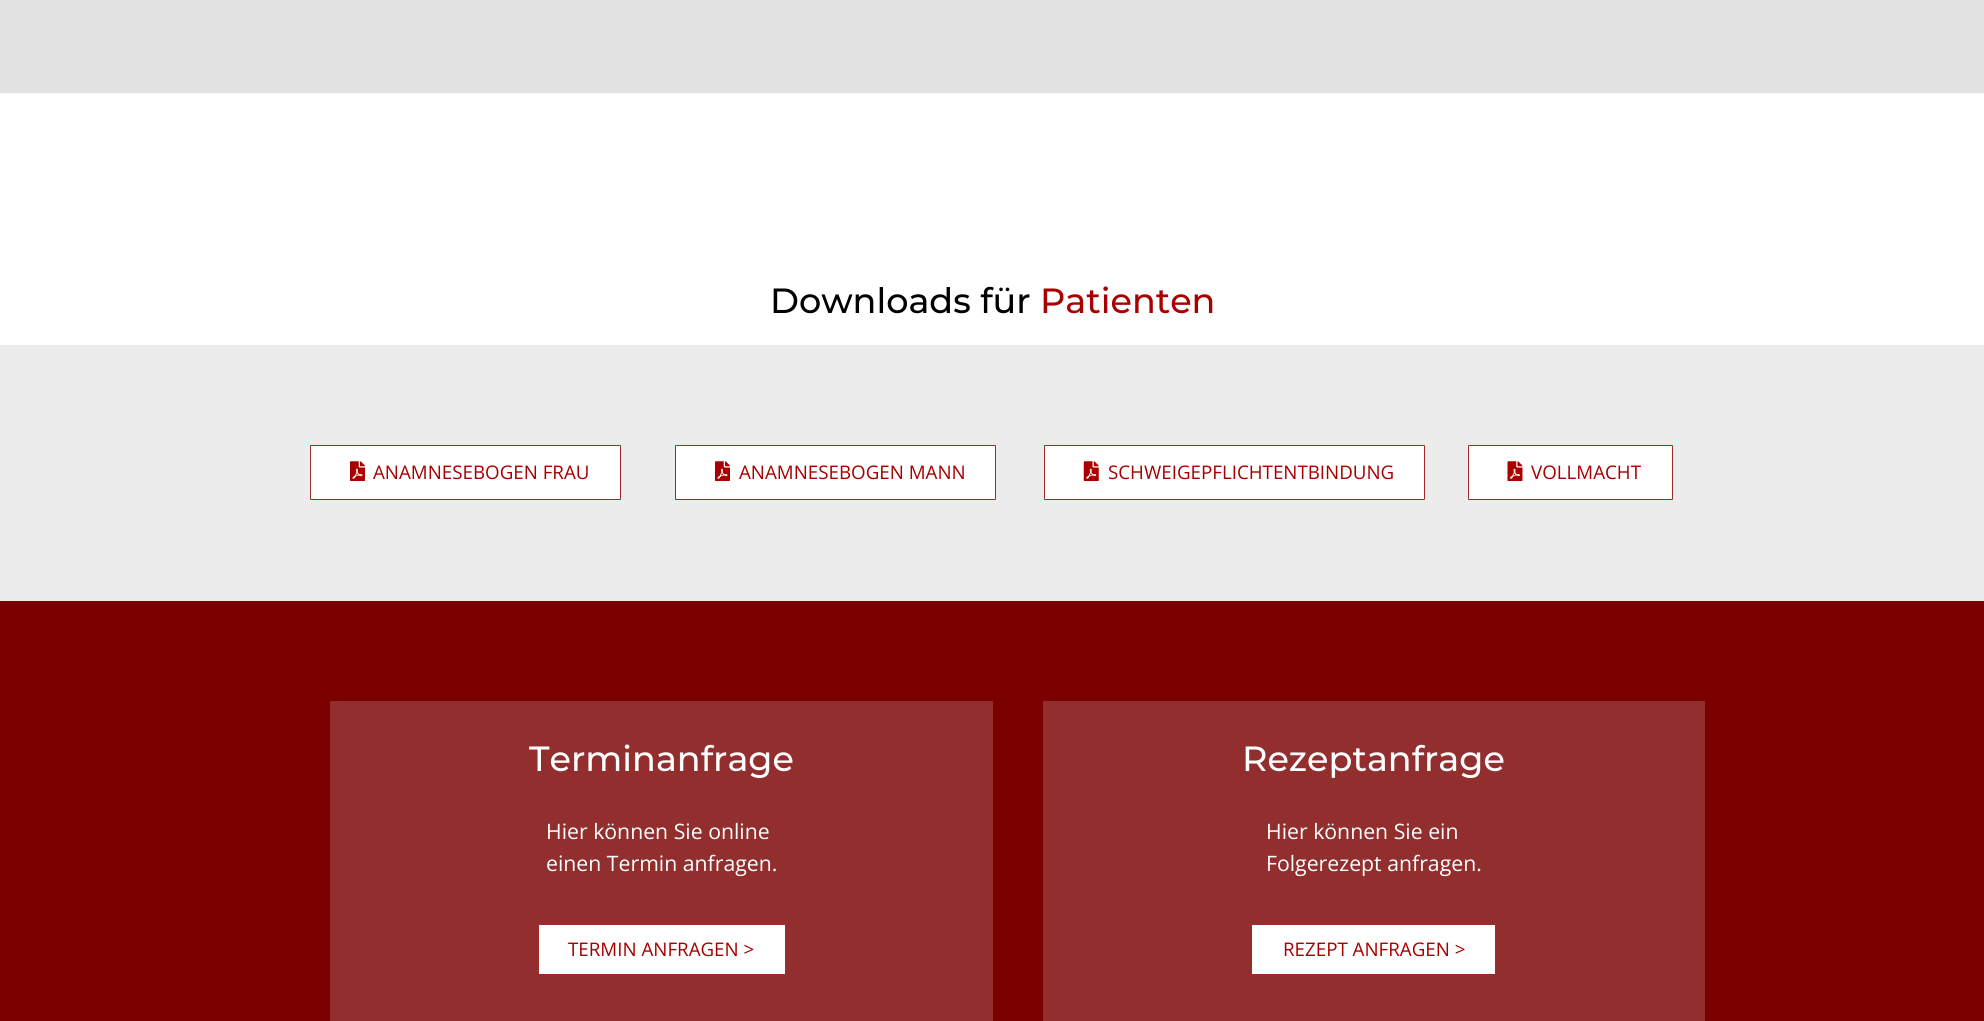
import math
import cairo


def use_color(cr, r, g, b):
  cr.set_source_rgb(r / 255, g / 255, b / 255)

def text(cr, x, y, s, family, size, color, bold=False, italic=False):
  cr.select_font_face(family, cairo.FONT_SLANT_ITALIC if italic else cairo.FONT_SLANT_NORMAL, cairo.FONT_WEIGHT_BOLD if bold else cairo.FONT_WEIGHT_NORMAL)
  cr.set_font_size(size)
  use_color(cr, *color)
  cr.move_to(x, y)
  cr.show_text(s)

def box(cr, x, y, w, h, *color):
  use_color(cr, *color)
  cr.rectangle(x, y, w, h)
  cr.fill()

def round_rect(cr, x, y, w, h, r):
  cr.new_sub_path()
  for i, (u, v) in enumerate([(x + w - r, y + h - r), (x + r, y + h - r), (x + r, y + r), (x + w - r, y + r)]):
    cr.arc(u, v, r, i * math.pi / 2, (i + 1) * math.pi / 2)
  cr.close_path()

def picture(cr, path, x, y, w, h):
  cr.save()
  cr.set_source_surface(cairo.ImageSurface.create_from_png(path), x, y)
  cr.rectangle(x, y, w, h)
  cr.fill()
  cr.restore()

def draw(cr):
  use_color(cr, 255, 255, 255)
  cr.paint()
  box(cr, 0, 0, 1984, 93, 226, 226, 226)
  box(cr, 0, 345, 1984, 256, 236, 236, 236)
  use_color(cr, 255, 255, 255)
  round_rect(cr, 310.5, 445.5, 310, 54, 0.5)
  cr.fill_preserve()
  use_color(cr, 159, 42, 42)
  cr.set_line_width(1)
  cr.stroke()
  picture(cr, "img_01.png", 350, 461, 15, 20)
  use_color(cr, 255, 255, 255)
  round_rect(cr, 675.5, 445.5, 320, 54, 0.5)
  cr.fill_preserve()
  use_color(cr, 159, 42, 42)
  cr.stroke()
  picture(cr, "img_01.png", 715, 461, 15, 20)
  use_color(cr, 255, 255, 255)
  round_rect(cr, 1044.5, 445.5, 380, 54, 0.5)
  cr.fill_preserve()
  use_color(cr, 159, 42, 42)
  cr.stroke()
  picture(cr, "img_02.png", 1083, 461, 16, 20)
  use_color(cr, 255, 255, 255)
  round_rect(cr, 1468.5, 445.5, 204, 54, 0.5)
  cr.fill_preserve()
  use_color(cr, 159, 42, 42)
  cr.stroke()
  picture(cr, "img_03.png", 1507, 461, 16, 20)
  box(cr, 0, 601, 1984, 420, 123, 0, 0)
  box(cr, 330, 701, 663, 320, 147, 46, 46)
  use_color(cr, 255, 255, 255)
  round_rect(cr, 538.5, 924.5, 247, 50, 0.5)
  cr.fill_preserve()
  use_color(cr, 159, 42, 42)
  cr.stroke()
  box(cr, 1043, 701, 662, 320, 147, 46, 46)
  use_color(cr, 255, 255, 255)
  round_rect(cr, 1251.5, 924.5, 244, 50, 0.5)
  cr.fill_preserve()
  use_color(cr, 159, 42, 42)
  cr.stroke()
  text(cr, 770, 313, "Downloads für", "Montserrat Medium", 35, (0, 0, 0))
  text(cr, 1040, 313, "Patienten", "Montserrat Medium", 35, (167, 0, 0))
  text(cr, 373, 479, "ANAMNESEBOGEN FRAU", "Open Sans", 18.75, (167, 0, 0))
  text(cr, 739, 479, "ANAMNESEBOGEN MANN", "Open Sans", 18.75, (167, 0, 0))
  text(cr, 1108, 479, "SCHWEIGEPFLICHTENTBINDUNG", "Open Sans", 18.75, (167, 0, 0))
  text(cr, 1531, 479, "VOLLMACHT", "Open Sans", 18.75, (167, 0, 0))
  text(cr, 529, 771, "Terminanfrage", "Montserrat Medium", 35, (255, 255, 255))
  text(cr, 546, 839, "Hier können Sie online", "Open Sans", 21.25, (255, 255, 255))
  text(cr, 546, 871, "einen Termin anfragen.", "Open Sans", 21.25, (255, 255, 255))
  text(cr, 568, 956, "TERMIN ANFRAGEN >", "Open Sans", 18.75, (167, 0, 0))
  text(cr, 1242, 771, "Rezeptanfrage", "Montserrat Medium", 35, (255, 255, 255))
  text(cr, 1266, 839, "Hier können Sie ein", "Open Sans", 21.25, (255, 255, 255))
  text(cr, 1266, 871, "Folgerezept anfragen.", "Open Sans", 21.25, (255, 255, 255))
  text(cr, 1283, 956, "REZEPT ANFRAGEN >", "Open Sans", 18.75, (167, 0, 0))


surface = cairo.ImageSurface(cairo.FORMAT_RGB24, 1984, 1021)
cr = cairo.Context(surface)
options = cairo.FontOptions()
options.set_hint_metrics(cairo.HINT_METRICS_OFF)
options.set_hint_style(cairo.HINT_STYLE_NONE)
cr.set_font_options(options)
cr.set_miter_limit(4)
draw(cr)
surface.write_to_png("out.png")
